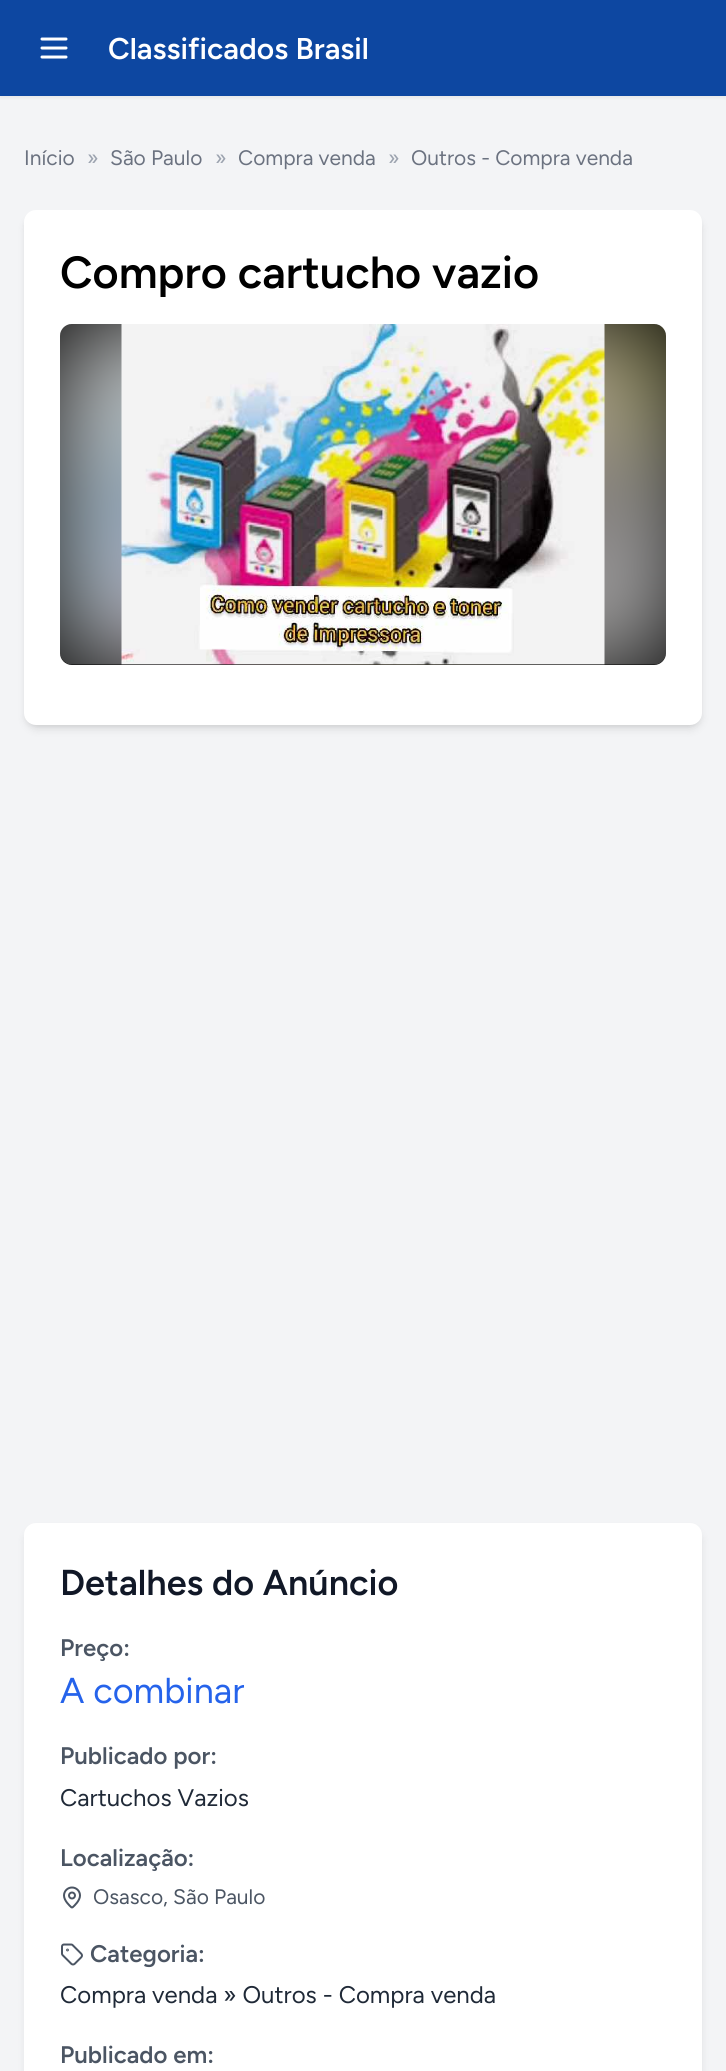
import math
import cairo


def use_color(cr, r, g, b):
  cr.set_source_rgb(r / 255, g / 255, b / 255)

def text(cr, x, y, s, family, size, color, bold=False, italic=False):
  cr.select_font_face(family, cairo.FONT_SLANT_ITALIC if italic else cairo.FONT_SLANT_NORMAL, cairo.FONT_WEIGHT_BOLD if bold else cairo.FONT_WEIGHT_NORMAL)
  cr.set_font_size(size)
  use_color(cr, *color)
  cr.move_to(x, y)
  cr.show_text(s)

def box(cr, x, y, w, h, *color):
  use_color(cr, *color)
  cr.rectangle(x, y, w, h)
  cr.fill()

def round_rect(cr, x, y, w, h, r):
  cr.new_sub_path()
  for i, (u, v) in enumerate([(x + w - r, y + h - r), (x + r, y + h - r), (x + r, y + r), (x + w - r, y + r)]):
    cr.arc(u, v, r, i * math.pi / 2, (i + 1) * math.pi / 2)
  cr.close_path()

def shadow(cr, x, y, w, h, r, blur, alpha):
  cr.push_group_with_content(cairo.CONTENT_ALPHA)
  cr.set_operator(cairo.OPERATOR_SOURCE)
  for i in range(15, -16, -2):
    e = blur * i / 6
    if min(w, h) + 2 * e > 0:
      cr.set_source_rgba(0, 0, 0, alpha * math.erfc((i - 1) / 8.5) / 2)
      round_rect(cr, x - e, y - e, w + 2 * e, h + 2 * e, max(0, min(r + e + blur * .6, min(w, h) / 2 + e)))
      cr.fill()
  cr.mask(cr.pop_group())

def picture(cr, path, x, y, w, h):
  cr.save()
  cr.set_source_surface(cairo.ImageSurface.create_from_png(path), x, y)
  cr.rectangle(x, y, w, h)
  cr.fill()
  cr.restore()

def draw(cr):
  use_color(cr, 243, 244, 246)
  cr.paint()
  use_color(cr, 0, 0, 0)
  shadow(cr, 0, 2, 726, 96, 0, 1.5, 0.05)
  box(cr, 0, 0, 726, 96, 13, 71, 161)
  cr.new_path()
  cr.move_to(42, 48)
  cr.line_to(66, 48)
  cr.move_to(42, 57)
  cr.line_to(66, 57)
  cr.move_to(42, 39)
  cr.line_to(66, 39)
  use_color(cr, 255, 255, 255)
  cr.set_line_width(3)
  cr.set_line_cap(cairo.LINE_CAP_ROUND)
  cr.set_line_join(cairo.LINE_JOIN_ROUND)
  cr.stroke()
  use_color(cr, 0, 0, 0)
  shadow(cr, 27, 216, 672, 509, 9, 3, 0.1)
  shadow(cr, 26, 218, 675, 511, 11, 4.5, 0.1)
  use_color(cr, 255, 255, 255)
  round_rect(cr, 24, 210, 678, 515, 12)
  cr.fill()
  use_color(cr, 0, 0, 0)
  round_rect(cr, 60, 324, 606, 341, 12)
  cr.fill()
  picture(cr, "img_01.png", 60, 324, 606, 341)
  picture(cr, "img_02.png", 121, 324, 484, 341)
  use_color(cr, 0, 0, 0)
  shadow(cr, 26, 1530, 675, 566, 11, 4.5, 0.1)
  use_color(cr, 255, 255, 255)
  round_rect(cr, 24, 1523, 678, 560, 12)
  cr.fill()
  picture(cr, "img_03.png", 63, 1886, 18, 23)
  picture(cr, "img_04.png", 61, 1943, 22, 23)
  text(cr, 108, 59, "Classificados Brasil", "Figtree SemiBold", 30, (255, 255, 255))
  text(cr, 24, 165, "Início", "Figtree Light", 21, (107, 114, 128))
  text(cr, 87, 165, "»", "Figtree Light", 21, (156, 163, 175))
  text(cr, 110, 165, "São Paulo", "Figtree Light", 21, (107, 114, 128))
  text(cr, 215, 165, "»", "Figtree Light", 21, (156, 163, 175))
  text(cr, 238, 165, "Compra venda", "Figtree Light", 21, (107, 114, 128))
  text(cr, 388, 165, "»", "Figtree Light", 21, (156, 163, 175))
  text(cr, 411, 165, "Outros - Compra venda", "Figtree Light", 21, (107, 114, 128))
  text(cr, 60, 288, "Compro cartucho vazio", "Figtree SemiBold", 45, (0, 0, 0))
  text(cr, 60, 1595, "Detalhes do Anúncio", "Figtree SemiBold", 36, (17, 24, 39))
  text(cr, 60, 1656, "Preço:", "Figtree SemiBold", 24, (75, 85, 99))
  text(cr, 60, 1703, "A combinar", "Figtree Light", 36, (37, 99, 235))
  text(cr, 60, 1764, "Publicado por:", "Figtree SemiBold", 24, (75, 85, 99))
  text(cr, 60, 1806, "Cartuchos Vazios", "Figtree Light", 24, (31, 41, 55))
  text(cr, 60, 1866, "Localização:", "Figtree SemiBold", 24, (75, 85, 99))
  text(cr, 93, 1904, "Osasco, São Paulo", "Figtree Light", 21, (75, 85, 99))
  text(cr, 90, 1962, "Categoria:", "Figtree SemiBold", 24, (75, 85, 99))
  text(cr, 60, 2003, "Compra venda » Outros - Compra venda", "Figtree Light", 24, (31, 41, 55))
  text(cr, 60, 2063, "Publicado em:", "Figtree SemiBold", 24, (75, 85, 99))


surface = cairo.ImageSurface(cairo.FORMAT_RGB24, 726, 2071)
cr = cairo.Context(surface)
options = cairo.FontOptions()
options.set_hint_metrics(cairo.HINT_METRICS_OFF)
options.set_hint_style(cairo.HINT_STYLE_NONE)
cr.set_font_options(options)
cr.set_miter_limit(4)
draw(cr)
surface.write_to_png("out.png")
